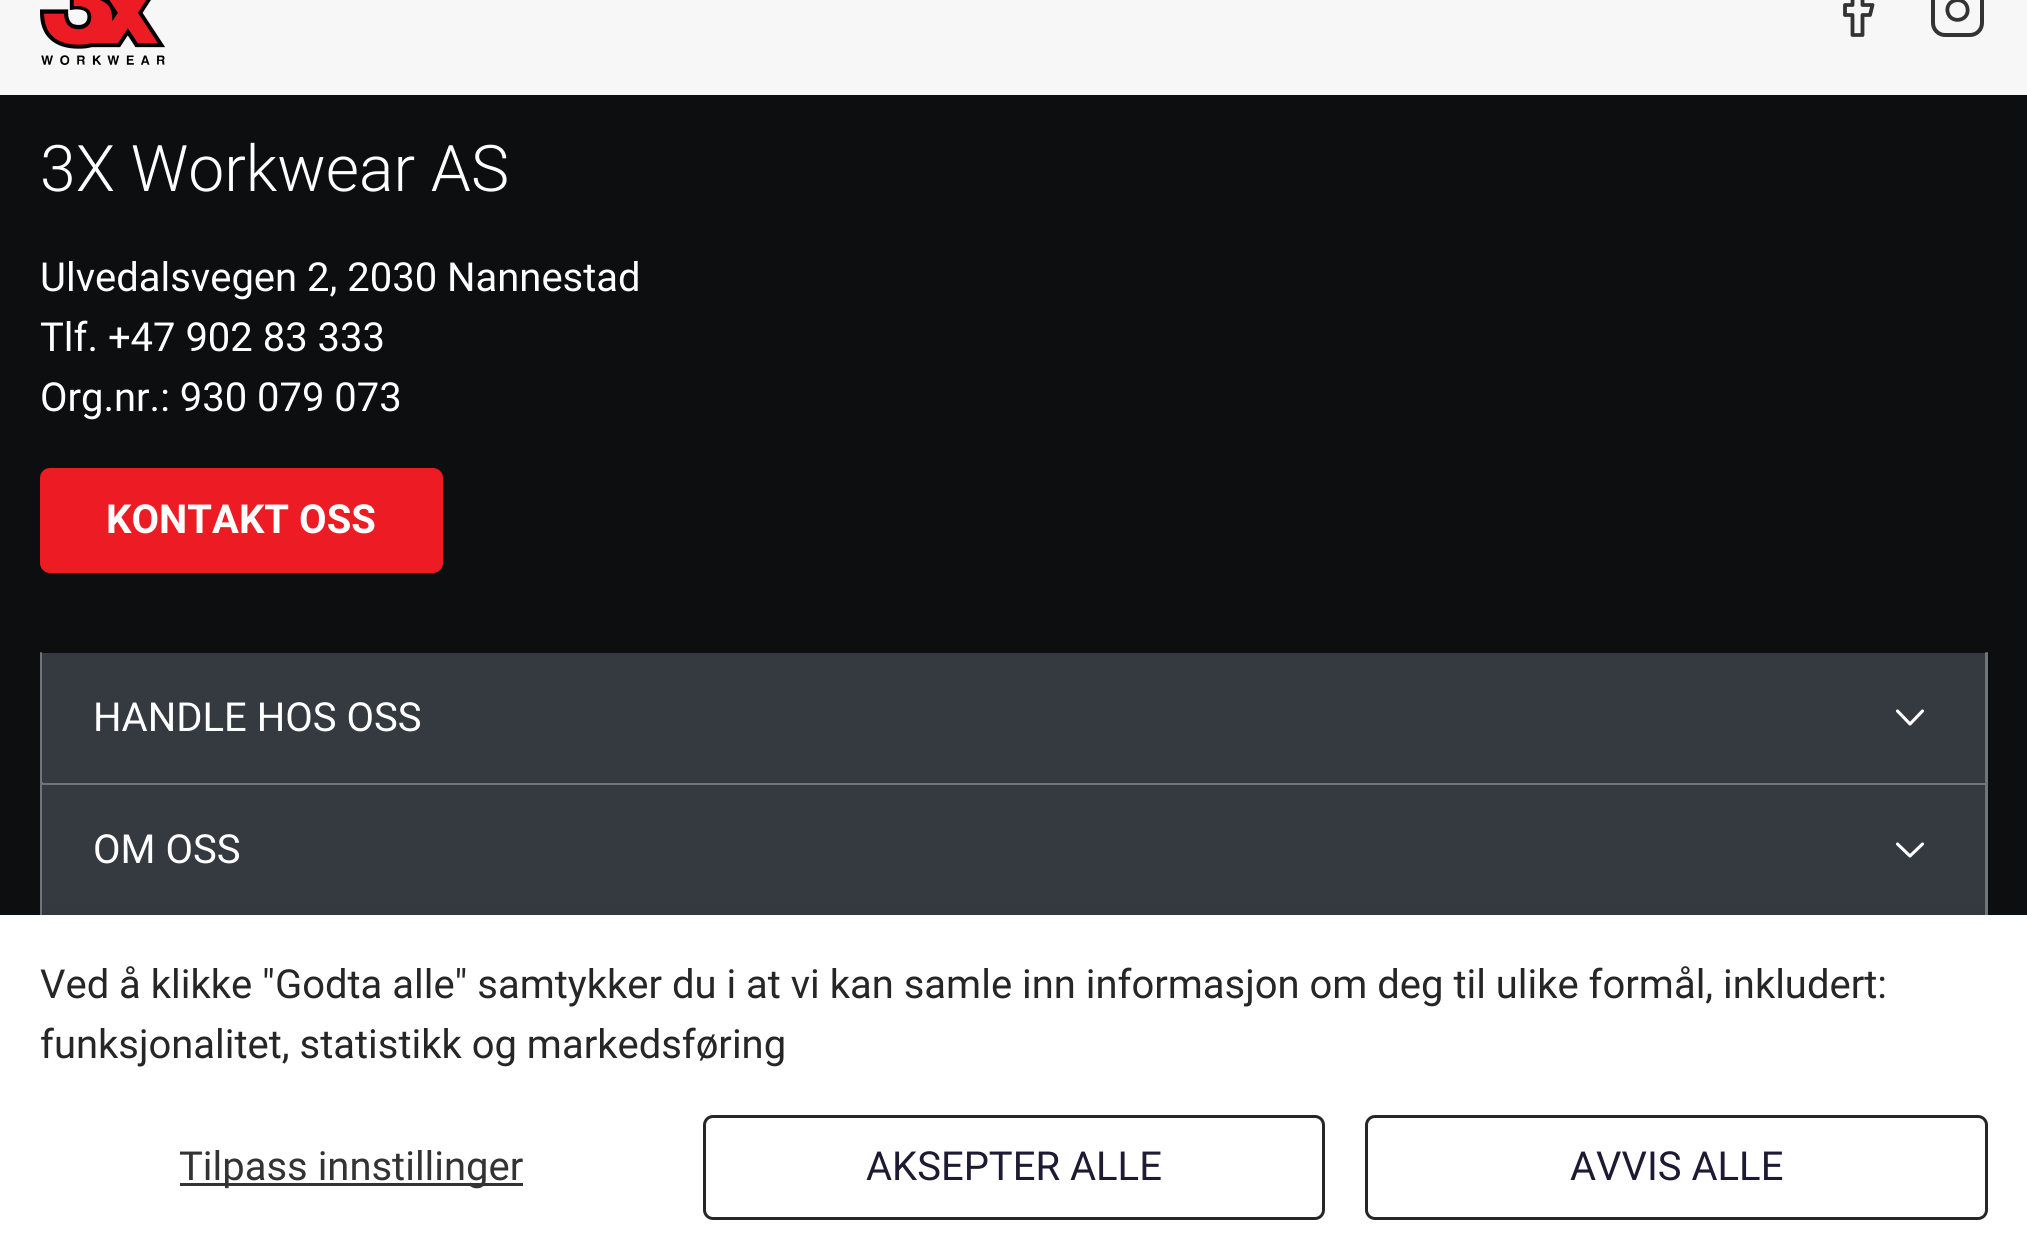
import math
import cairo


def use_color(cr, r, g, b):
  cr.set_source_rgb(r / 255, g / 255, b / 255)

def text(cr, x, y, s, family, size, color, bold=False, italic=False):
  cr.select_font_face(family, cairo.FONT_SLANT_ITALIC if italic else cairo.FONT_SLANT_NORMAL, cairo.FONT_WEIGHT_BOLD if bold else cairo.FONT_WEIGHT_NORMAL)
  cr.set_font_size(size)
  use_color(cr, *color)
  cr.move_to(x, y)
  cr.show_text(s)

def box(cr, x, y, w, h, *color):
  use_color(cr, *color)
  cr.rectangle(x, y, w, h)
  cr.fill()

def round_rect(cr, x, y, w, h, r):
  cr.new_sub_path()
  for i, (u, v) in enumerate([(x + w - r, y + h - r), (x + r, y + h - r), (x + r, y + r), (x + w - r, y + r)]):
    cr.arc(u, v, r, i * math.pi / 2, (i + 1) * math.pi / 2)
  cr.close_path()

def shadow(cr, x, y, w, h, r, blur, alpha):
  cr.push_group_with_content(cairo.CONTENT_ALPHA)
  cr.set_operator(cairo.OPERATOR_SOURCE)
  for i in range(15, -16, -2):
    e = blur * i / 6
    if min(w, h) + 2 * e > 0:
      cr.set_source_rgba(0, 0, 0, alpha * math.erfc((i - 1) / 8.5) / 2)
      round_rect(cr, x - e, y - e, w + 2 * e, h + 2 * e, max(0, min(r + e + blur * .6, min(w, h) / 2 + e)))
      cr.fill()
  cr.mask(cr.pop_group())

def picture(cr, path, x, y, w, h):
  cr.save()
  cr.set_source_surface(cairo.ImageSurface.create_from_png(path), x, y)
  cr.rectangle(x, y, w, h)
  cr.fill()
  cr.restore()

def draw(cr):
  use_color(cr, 247, 247, 247)
  cr.paint()
  picture(cr, "img_01.png", 40, 0, 125, 65)
  cr.new_path()
  cr.move_to(1872.5, -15)
  cr.line_to(1862.5, -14.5)
  cr.curve_to(1852, -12.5, 1852.5, -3, 1852.5, 5)
  cr.line_to(1845, 5)
  cr.line_to(1845, 15)
  cr.line_to(1852.5, 15)
  cr.line_to(1852.5, 35)
  cr.line_to(1862.5, 35)
  cr.line_to(1862.5, 15)
  cr.line_to(1870, 15)
  cr.line_to(1872.5, 5)
  cr.line_to(1862.5, 5)
  cr.curve_to(1862.5, -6, 1861.5, -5, 1872.5, -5)
  cr.close_path()
  use_color(cr, 51, 51, 51)
  cr.set_line_width(3.8)
  cr.set_line_cap(cairo.LINE_CAP_ROUND)
  cr.set_line_join(cairo.LINE_JOIN_ROUND)
  cr.stroke()
  round_rect(cr, 1933, -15, 49, 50, 12)
  cr.set_line_width(4)
  cr.set_line_cap(cairo.LINE_CAP_BUTT)
  cr.set_line_join(cairo.LINE_JOIN_MITER)
  cr.stroke()
  cr.new_path()
  cr.move_to(1967.5, 8.5)
  cr.curve_to(1969.5, 21.5, 1950, 24.5, 1947.5, 11.5)
  cr.curve_to(1945.5, -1.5, 1965.5, -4.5, 1967.5, 8.5)
  cr.close_path()
  cr.set_line_width(3.8)
  cr.set_line_cap(cairo.LINE_CAP_ROUND)
  cr.set_line_join(cairo.LINE_JOIN_ROUND)
  cr.stroke()
  box(cr, 0, 95, 2027, 820, 13, 14, 16)
  use_color(cr, 237, 28, 36)
  round_rect(cr, 40, 468, 403, 105, 10)
  cr.fill()
  box(cr, 40, 653, 1948, 262, 52, 58, 64)
  cr.set_source_rgba(1, 1, 1, 0.3)
  cr.new_path()
  cr.move_to(1988, 652)
  cr.line_to(1988, 785)
  cr.line_to(1985, 782)
  cr.line_to(1985, 652)
  cr.close_path()
  cr.fill()
  cr.new_path()
  cr.move_to(1988, 785)
  cr.line_to(40, 785)
  cr.line_to(42, 782)
  cr.line_to(1985, 782)
  cr.close_path()
  cr.fill()
  cr.new_path()
  cr.move_to(40, 785)
  cr.line_to(40, 652)
  cr.line_to(42, 652)
  cr.line_to(42, 782)
  cr.close_path()
  cr.fill()
  box(cr, 43, 782, 1942, 1, 52, 58, 64)
  cr.new_path()
  cr.move_to(1897.5, 711)
  cr.line_to(1910, 724)
  cr.line_to(1922.5, 711)
  use_color(cr, 255, 255, 255)
  cr.set_line_width(3.1)
  cr.stroke()
  use_color(cr, 113, 117, 121)
  cr.new_path()
  cr.move_to(1988, 785)
  cr.line_to(1988, 918)
  cr.line_to(1985, 915)
  cr.line_to(1985, 785)
  cr.close_path()
  cr.fill()
  cr.set_source_rgba(1, 1, 1, 0.3)
  cr.new_path()
  cr.move_to(40, 918)
  cr.line_to(40, 785)
  cr.line_to(42, 785)
  cr.line_to(42, 915)
  cr.close_path()
  cr.fill()
  cr.new_path()
  cr.move_to(1897.5, 844)
  cr.line_to(1910, 856)
  cr.line_to(1922.5, 844)
  use_color(cr, 255, 255, 255)
  cr.stroke()
  use_color(cr, 0, 0, 0)
  shadow(cr, 0, 935, 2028, 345, 0, 20, 0.15)
  box(cr, 0, 915, 2027, 345, 255, 255, 255)
  box(cr, 180, 1183, 343, 3, 51, 51, 51)
  round_rect(cr, 704.5, 1116.5, 619, 102, 8.5)
  use_color(cr, 38, 38, 38)
  cr.set_line_width(3)
  cr.set_line_cap(cairo.LINE_CAP_BUTT)
  cr.set_line_join(cairo.LINE_JOIN_MITER)
  cr.stroke()
  round_rect(cr, 1366.5, 1116.5, 620, 102, 8.5)
  cr.stroke()
  text(cr, 40, 191, "3X Workwear AS", "Heebo Light", 64.25, (255, 255, 255))
  text(cr, 40, 291, "Ulvedalsvegen 2, 2030 Nannestad", "Roboto", 40, (255, 255, 255))
  text(cr, 40, 351, "Tlf. +47 902 83 333", "Roboto", 40, (255, 255, 255))
  text(cr, 40, 411, "Org.nr.: 930 079 073", "Roboto", 40, (255, 255, 255))
  text(cr, 106, 533, "KONTAKT OSS", "Roboto", 40, (255, 255, 255), bold=True)
  text(cr, 93, 731, "HANDLE HOS OSS", "Heebo", 40, (255, 255, 255))
  text(cr, 93, 863, "OM OSS", "Heebo", 40, (255, 255, 255))
  text(cr, 40, 998, "Ved å klikke \"Godta alle\" samtykker du i at vi kan samle inn informasjon om deg til ulike formål, inkludert:", "Roboto", 40, (38, 38, 38))
  text(cr, 40, 1058, "funksjonalitet, statistikk og markedsføring", "Roboto", 40, (38, 38, 38))
  text(cr, 179, 1180, "Tilpass innstillinger", "Roboto", 40, (51, 51, 51))
  text(cr, 866, 1180, "AKSEPTER ALLE", "Roboto", 40, (30, 26, 51))
  text(cr, 1570, 1180, "AVVIS ALLE", "Roboto", 40, (30, 26, 51))


surface = cairo.ImageSurface(cairo.FORMAT_RGB24, 2027, 1260)
cr = cairo.Context(surface)
options = cairo.FontOptions()
options.set_hint_metrics(cairo.HINT_METRICS_OFF)
options.set_hint_style(cairo.HINT_STYLE_NONE)
cr.set_font_options(options)
cr.set_miter_limit(4)
draw(cr)
surface.write_to_png("out.png")
